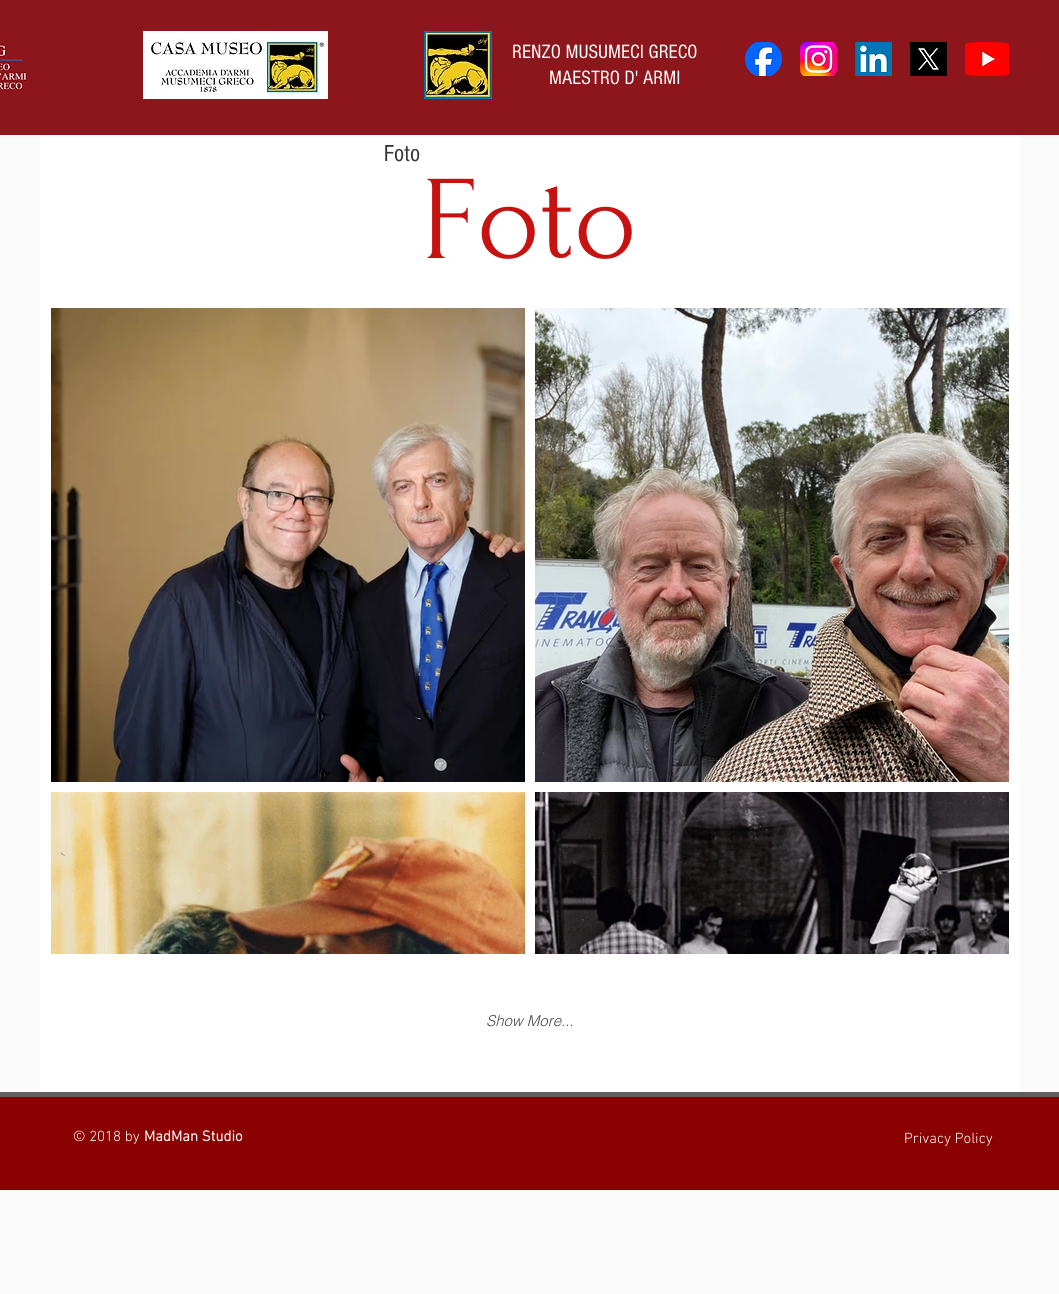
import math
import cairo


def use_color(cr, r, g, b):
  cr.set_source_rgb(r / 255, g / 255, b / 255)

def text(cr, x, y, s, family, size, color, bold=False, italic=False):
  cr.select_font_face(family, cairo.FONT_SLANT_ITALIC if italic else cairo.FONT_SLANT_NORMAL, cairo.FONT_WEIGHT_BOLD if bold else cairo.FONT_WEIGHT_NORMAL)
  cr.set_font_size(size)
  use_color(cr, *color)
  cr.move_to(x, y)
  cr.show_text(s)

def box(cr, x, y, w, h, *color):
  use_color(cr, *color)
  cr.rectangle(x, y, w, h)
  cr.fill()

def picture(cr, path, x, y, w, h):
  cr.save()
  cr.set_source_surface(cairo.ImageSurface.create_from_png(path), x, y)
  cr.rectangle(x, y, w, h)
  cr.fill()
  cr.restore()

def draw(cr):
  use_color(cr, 250, 250, 250)
  cr.paint()
  box(cr, 0, 0, 1059, 135, 140, 22, 27)
  picture(cr, "img_01.png", 0, 44, 27, 47)
  picture(cr, "img_02.png", 143, 31, 185, 68)
  picture(cr, "img_03.png", 424, 31, 68, 68)
  picture(cr, "img_04.png", 745, 42, 37, 34)
  picture(cr, "img_05.png", 800, 42, 37, 34)
  picture(cr, "img_06.png", 855, 42, 37, 34)
  picture(cr, "img_07.png", 910, 42, 37, 34)
  picture(cr, "img_08.png", 965, 42, 44, 34)
  box(cr, 40, 135, 980, 957, 255, 255, 255)
  picture(cr, "img_09.png", 51, 308, 474, 474)
  picture(cr, "img_10.png", 535, 308, 474, 474)
  picture(cr, "img_11.png", 51, 792, 474, 162)
  picture(cr, "img_12.png", 535, 792, 474, 162)
  box(cr, 0, 1097, 1059, 93, 139, 0, 0)
  box(cr, 0, 1092, 1059, 5, 96, 94, 94)
  text(cr, 512, 58, "RENZO MUSUMECI GRECO", "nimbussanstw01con", 20, (255, 255, 255))
  text(cr, 549, 84, "MAESTRO D' ARMI", "nimbussanstw01con", 20, (255, 255, 255))
  text(cr, 384, 161, "Foto", "nimbussanstw01con", 24, (54, 54, 54))
  text(cr, 422, 258, "Foto", "Forum", 120, (199, 18, 18))
  text(cr, 486, 1026, "Show More...", "helvetica Light", 15, (74, 74, 74), italic=True)
  text(cr, 73, 1141, "© 2018 by", "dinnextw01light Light", 15, (255, 255, 255))
  text(cr, 144, 1141, "MadMan Studio", "dinnextw01light", 15, (255, 255, 255), bold=True)
  text(cr, 904, 1143, "Privacy Policy", "dinnextw01light Light", 15, (255, 255, 255))


surface = cairo.ImageSurface(cairo.FORMAT_RGB24, 1059, 1294)
cr = cairo.Context(surface)
options = cairo.FontOptions()
options.set_hint_metrics(cairo.HINT_METRICS_OFF)
options.set_hint_style(cairo.HINT_STYLE_NONE)
cr.set_font_options(options)
cr.set_miter_limit(4)
draw(cr)
surface.write_to_png("out.png")
